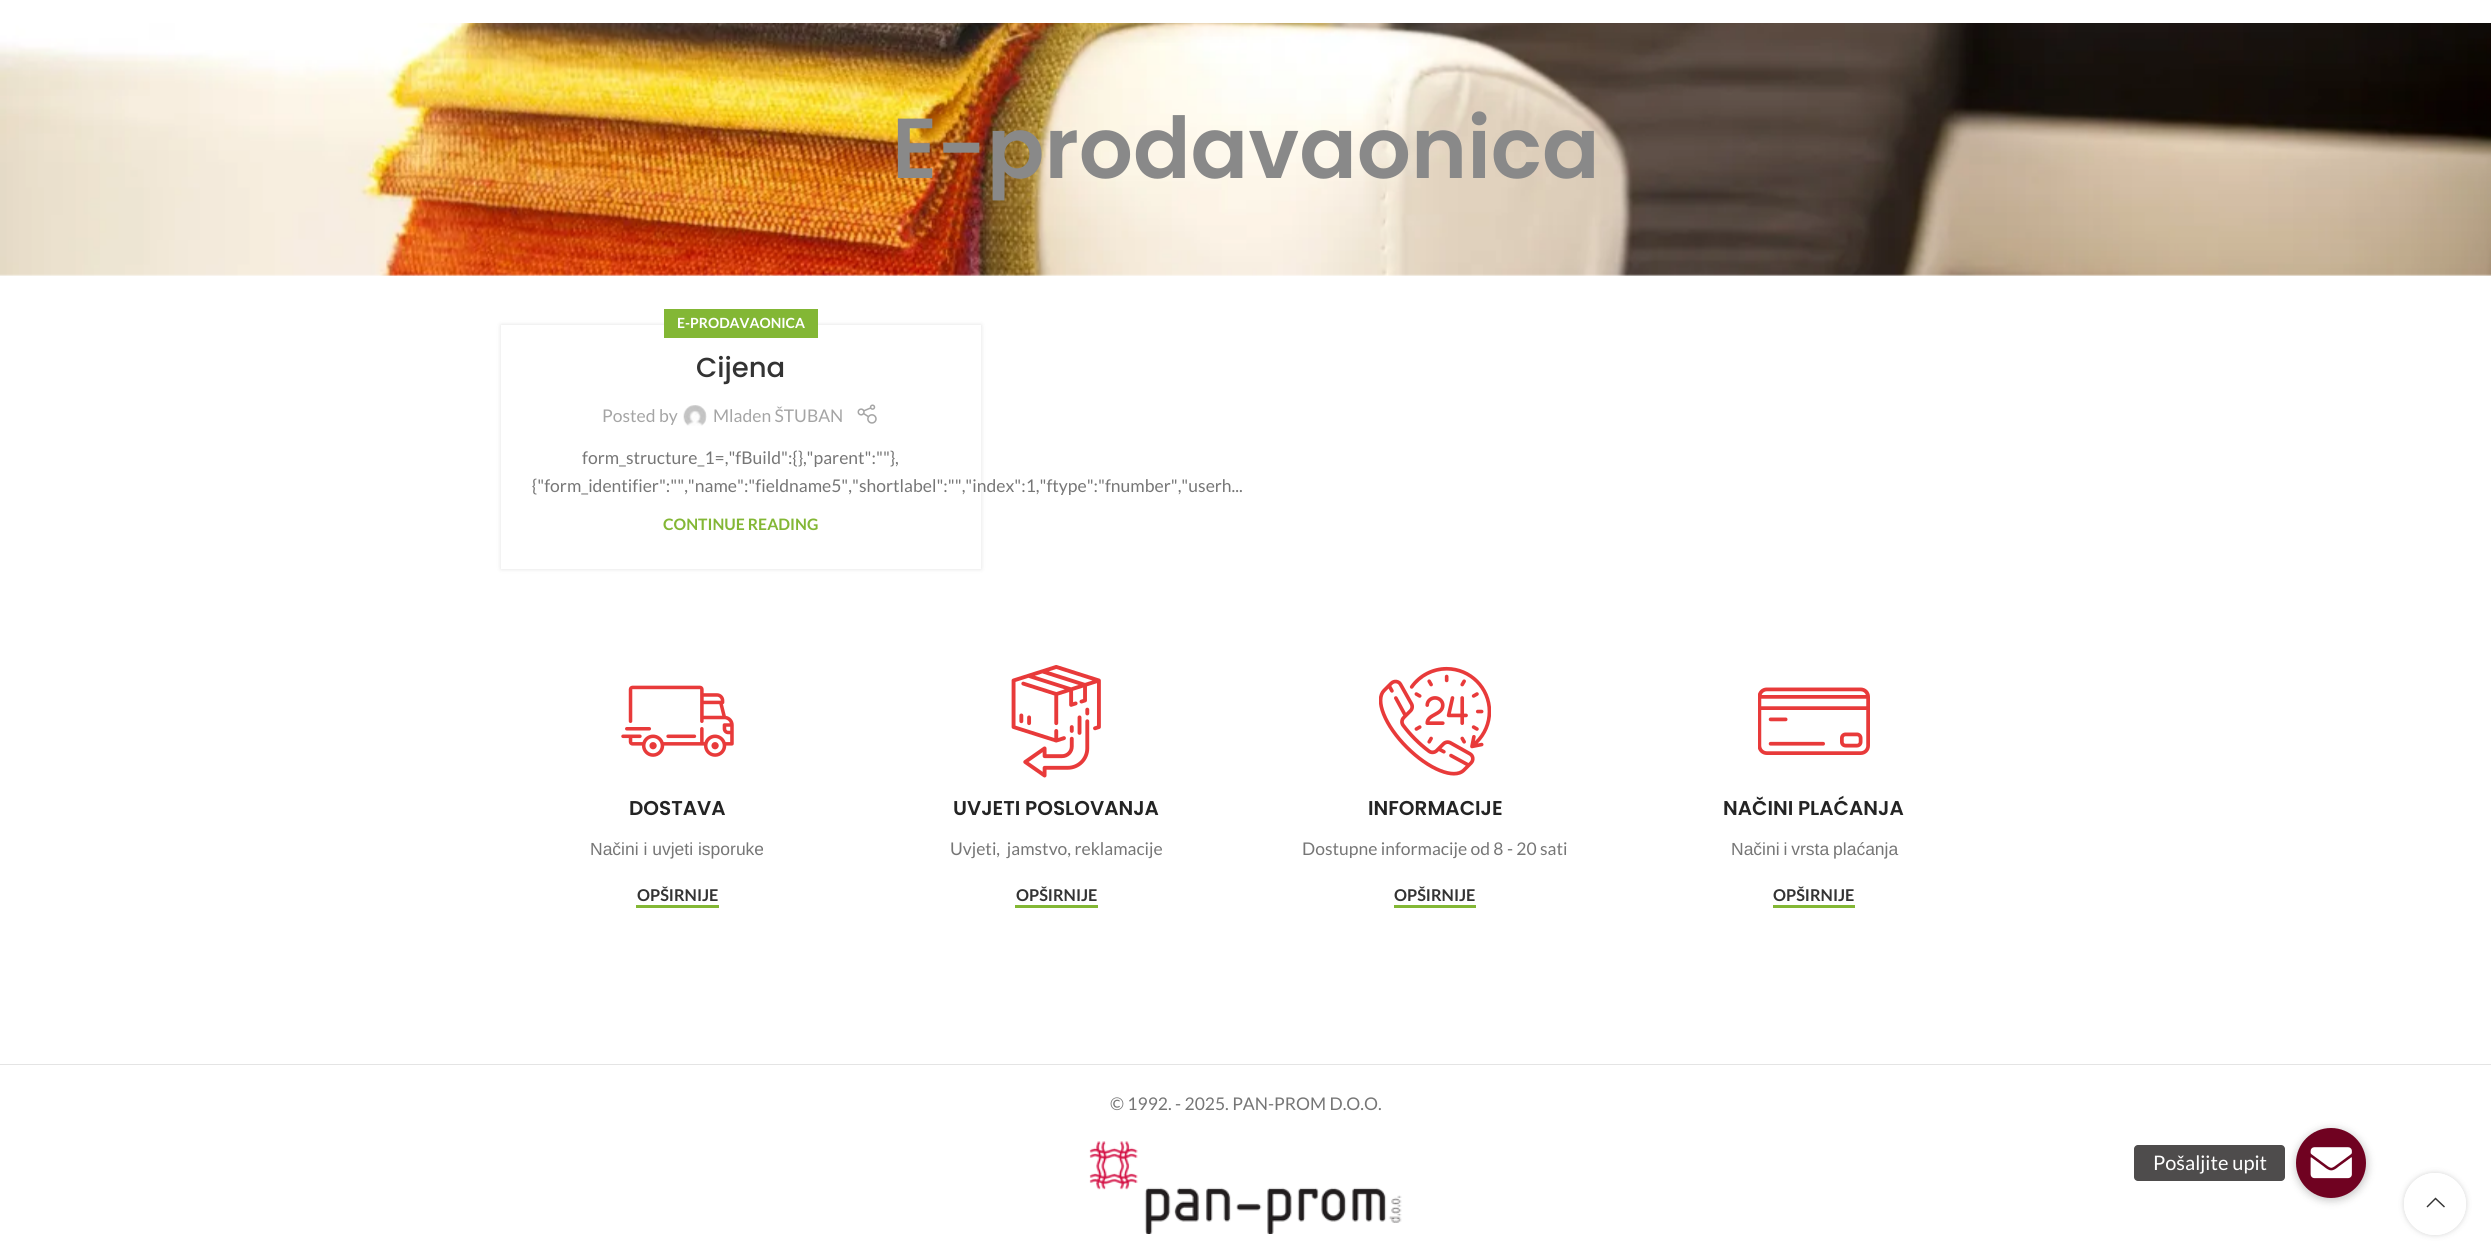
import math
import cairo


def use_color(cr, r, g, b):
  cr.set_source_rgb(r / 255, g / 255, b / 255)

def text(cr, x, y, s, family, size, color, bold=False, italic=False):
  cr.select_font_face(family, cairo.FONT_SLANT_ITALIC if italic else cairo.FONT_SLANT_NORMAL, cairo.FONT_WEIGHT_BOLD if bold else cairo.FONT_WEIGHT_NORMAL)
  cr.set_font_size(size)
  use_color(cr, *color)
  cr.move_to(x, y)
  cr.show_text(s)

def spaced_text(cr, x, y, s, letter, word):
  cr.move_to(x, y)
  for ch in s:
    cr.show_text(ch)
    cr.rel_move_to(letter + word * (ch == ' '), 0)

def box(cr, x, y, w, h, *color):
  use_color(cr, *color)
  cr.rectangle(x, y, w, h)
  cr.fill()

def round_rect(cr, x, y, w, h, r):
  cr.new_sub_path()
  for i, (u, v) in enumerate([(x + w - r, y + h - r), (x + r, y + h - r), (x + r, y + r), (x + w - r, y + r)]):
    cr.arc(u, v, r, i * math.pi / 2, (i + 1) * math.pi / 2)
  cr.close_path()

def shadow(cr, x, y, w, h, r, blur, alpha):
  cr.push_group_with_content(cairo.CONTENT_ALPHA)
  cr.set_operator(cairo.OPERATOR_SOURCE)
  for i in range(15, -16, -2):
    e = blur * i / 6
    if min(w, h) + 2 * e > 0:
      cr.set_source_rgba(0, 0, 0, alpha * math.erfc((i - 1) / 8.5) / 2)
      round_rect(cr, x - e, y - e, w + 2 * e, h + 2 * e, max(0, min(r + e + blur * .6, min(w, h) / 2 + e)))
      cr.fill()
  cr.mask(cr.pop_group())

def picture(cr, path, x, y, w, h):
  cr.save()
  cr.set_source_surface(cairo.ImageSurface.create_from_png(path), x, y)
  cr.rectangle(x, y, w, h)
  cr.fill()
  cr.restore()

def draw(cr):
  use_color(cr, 255, 255, 255)
  cr.paint()
  picture(cr, "img_01.png", 0, 23, 2491, 253)
  use_color(cr, 0, 0, 0)
  shadow(cr, 501, 325, 480, 244, 0, 2.5, 0.12)
  box(cr, 501, 325, 480, 244, 255, 255, 255)
  box(cr, 664, 309, 154, 29, 131, 183, 53)
  picture(cr, "img_02.png", 683, 405, 24, 21)
  picture(cr, "img_03.png", 857, 404, 20, 20)
  picture(cr, "img_04.png", 621, 685, 113, 72)
  box(cr, 636, 905, 83, 3, 131, 183, 53)
  picture(cr, "img_05.png", 1011, 665, 90, 113)
  box(cr, 1015, 905, 83, 3, 131, 183, 53)
  picture(cr, "img_06.png", 1379, 666, 112, 110)
  box(cr, 1394, 905, 82, 3, 131, 183, 53)
  picture(cr, "img_07.png", 1758, 687, 112, 68)
  box(cr, 1773, 905, 82, 3, 131, 183, 53)
  box(cr, 0, 1064, 2491, 1, 228, 228, 228)
  picture(cr, "img_08.png", 1089, 1141, 313, 93)
  use_color(cr, 0, 0, 0)
  shadow(cr, 2295, 1129, 73, 72, 36, 4, 0.2)
  use_color(cr, 112, 2, 33)
  cr.arc(2331, 1163, 35, 0, 2 * math.pi)
  cr.fill()
  use_color(cr, 78, 76, 76)
  round_rect(cr, 2134, 1145, 151, 36, 4)
  cr.fill()
  picture(cr, "img_09.png", 2310, 1147, 42, 32)
  cr.save()
  cr.set_fill_rule(cairo.FILL_RULE_EVEN_ODD)
  cr.new_path()
  cr.move_to(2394, 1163)
  cr.line_to(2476, 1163)
  cr.line_to(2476, 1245)
  cr.line_to(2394, 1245)
  cr.close_path()
  cr.move_to(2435, 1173)
  cr.curve_to(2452, 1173, 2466, 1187, 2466, 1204)
  cr.curve_to(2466, 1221, 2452, 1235, 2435, 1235)
  cr.curve_to(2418, 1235, 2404, 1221, 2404, 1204)
  cr.curve_to(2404, 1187, 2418, 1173, 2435, 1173)
  cr.close_path()
  cr.clip()
  use_color(cr, 0, 0, 0)
  shadow(cr, 2404, 1173, 62, 62, 31, 3, 0.17)
  cr.restore()
  cr.set_source_rgba(1, 1, 1, 0.9)
  cr.arc(2435, 1204, 31, 0, 2 * math.pi)
  cr.fill()
  use_color(cr, 51, 51, 51)
  cr.new_path()
  cr.move_to(2444, 1207.5)
  cr.line_to(2445, 1206.5)
  cr.line_to(2435.5, 1197.5)
  cr.line_to(2426.5, 1206.5)
  cr.line_to(2427.5, 1207.5)
  cr.line_to(2435.5, 1199.5)
  cr.close_path()
  cr.fill()
  text(cr, 892, 178, "E-prodavaonica", "Poppins SemiBold", 85, (137, 137, 137))
  text(cr, 677, 328, "E-PRODAVAONICA", "Lato", 14, (255, 255, 255), bold=True)
  text(cr, 696, 377, "Cijena", "Poppins Medium", 27.5, (51, 51, 51))
  text(cr, 602, 422, "Posted by", "Lato", 17.5, (165, 165, 165))
  text(cr, 713, 422, "Mladen ŠTUBAN", "Lato", 17.5, (165, 165, 165))
  text(cr, 582, 464, "form_structure_1=,\"fBuild\":{},\"parent\":\"\"},", "Lato", 17.5, (118, 118, 118))
  text(cr, 532, 492, "{\"form_identifier\":\"\",\"name\":\"fieldname5\",\"shortlabel\":\"\",\"index\":1,\"ftype\":\"fnumber\",\"userh...", "Lato", 17.5, (118, 118, 118))
  text(cr, 663, 530, "CONTINUE READING", "Lato", 15.75, (131, 183, 53), bold=True)
  text(cr, 629, 815, "DOSTAVA", "Poppins SemiBold", 20, (36, 36, 36))
  text(cr, 590, 855, "Načini i uvjeti isporuke", "Liberation Sans", 17.5, (118, 118, 118))
  text(cr, 637, 901, "OPŠIRNIJE", "Lato", 16.25, (51, 51, 51), bold=True)
  text(cr, 953, 815, "UVJETI POSLOVANJA", "Poppins SemiBold", 20, (36, 36, 36))
  text(cr, 950, 855, "Uvjeti,  jamstvo, reklamacije", "Lato", 17.5, (118, 118, 118))
  text(cr, 1016, 901, "OPŠIRNIJE", "Lato", 16.25, (51, 51, 51), bold=True)
  text(cr, 1368, 815, "INFORMACIJE", "Poppins SemiBold", 20, (36, 36, 36))
  text(cr, 1302, 855, "Dostupne informacije od 8 - 20 sati", "Lato", 17.5, (118, 118, 118))
  text(cr, 1394, 901, "OPŠIRNIJE", "Lato", 16.25, (51, 51, 51), bold=True)
  text(cr, 1723, 815, "NAČINI PLAĆANJA", "Poppins SemiBold", 20, (36, 36, 36))
  cr.select_font_face("Liberation Sans")
  cr.set_font_size(17.5)
  use_color(cr, 118, 118, 118)
  spaced_text(cr, 1731, 855, "Načini i vrsta plaćanja", 0, -1)
  text(cr, 1773, 901, "OPŠIRNIJE", "Lato", 16.25, (51, 51, 51), bold=True)
  text(cr, 1110, 1110, "© 1992. - 2025. PAN-PROM D.O.O.", "Lato", 17.5, (118, 118, 118))
  text(cr, 2153, 1170, "Pošaljite upit", "Lato", 20, (255, 255, 255))


surface = cairo.ImageSurface(cairo.FORMAT_RGB24, 2491, 1260)
cr = cairo.Context(surface)
options = cairo.FontOptions()
options.set_hint_metrics(cairo.HINT_METRICS_OFF)
options.set_hint_style(cairo.HINT_STYLE_NONE)
cr.set_font_options(options)
cr.set_miter_limit(4)
draw(cr)
surface.write_to_png("out.png")
